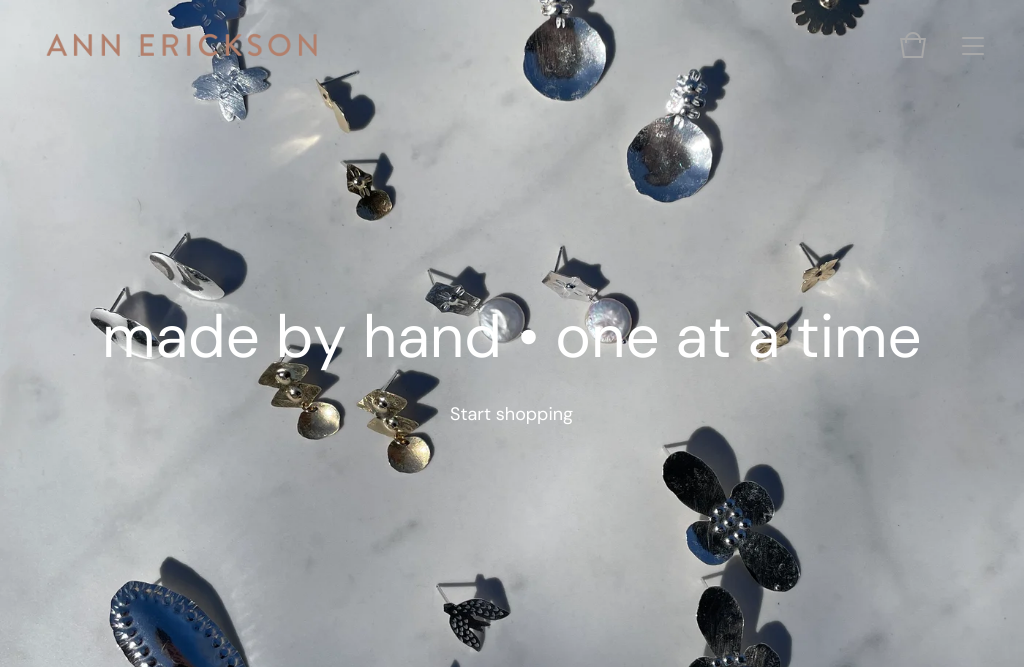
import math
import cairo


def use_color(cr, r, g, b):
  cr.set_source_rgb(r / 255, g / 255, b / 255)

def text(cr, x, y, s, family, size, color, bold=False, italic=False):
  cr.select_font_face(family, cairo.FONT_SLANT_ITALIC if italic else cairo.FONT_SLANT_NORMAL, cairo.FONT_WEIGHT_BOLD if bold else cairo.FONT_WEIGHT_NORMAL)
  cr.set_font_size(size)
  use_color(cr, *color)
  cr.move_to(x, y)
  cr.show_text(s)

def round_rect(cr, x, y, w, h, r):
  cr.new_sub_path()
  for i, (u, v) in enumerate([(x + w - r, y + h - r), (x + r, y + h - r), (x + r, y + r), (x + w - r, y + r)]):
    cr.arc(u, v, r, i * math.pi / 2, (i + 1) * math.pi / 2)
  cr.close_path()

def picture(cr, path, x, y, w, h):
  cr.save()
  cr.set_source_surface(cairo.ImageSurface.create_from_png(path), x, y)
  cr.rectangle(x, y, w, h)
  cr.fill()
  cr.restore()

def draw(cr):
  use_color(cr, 255, 255, 255)
  cr.paint()
  picture(cr, "img_03.png", 0, 0, 1024, 667)
  picture(cr, "img_01.png", 46, 33, 271, 24)
  picture(cr, "img_02.png", 900, 32, 26, 26)
  use_color(cr, 168, 168, 168)
  round_rect(cr, 962, 37, 22, 2, 1)
  cr.fill()
  round_rect(cr, 962, 45, 22, 2, 1)
  cr.fill()
  round_rect(cr, 962, 53, 22, 2, 1)
  cr.fill()
  text(cr, 102, 357, "made by hand • one at a time", "DM Sans", 60, (255, 255, 255))
  text(cr, 450, 420, "Start shopping", "DM Sans", 18, (255, 255, 255))


surface = cairo.ImageSurface(cairo.FORMAT_RGB24, 1024, 667)
cr = cairo.Context(surface)
options = cairo.FontOptions()
options.set_hint_metrics(cairo.HINT_METRICS_OFF)
options.set_hint_style(cairo.HINT_STYLE_NONE)
cr.set_font_options(options)
cr.set_miter_limit(4)
draw(cr)
surface.write_to_png("out.png")
